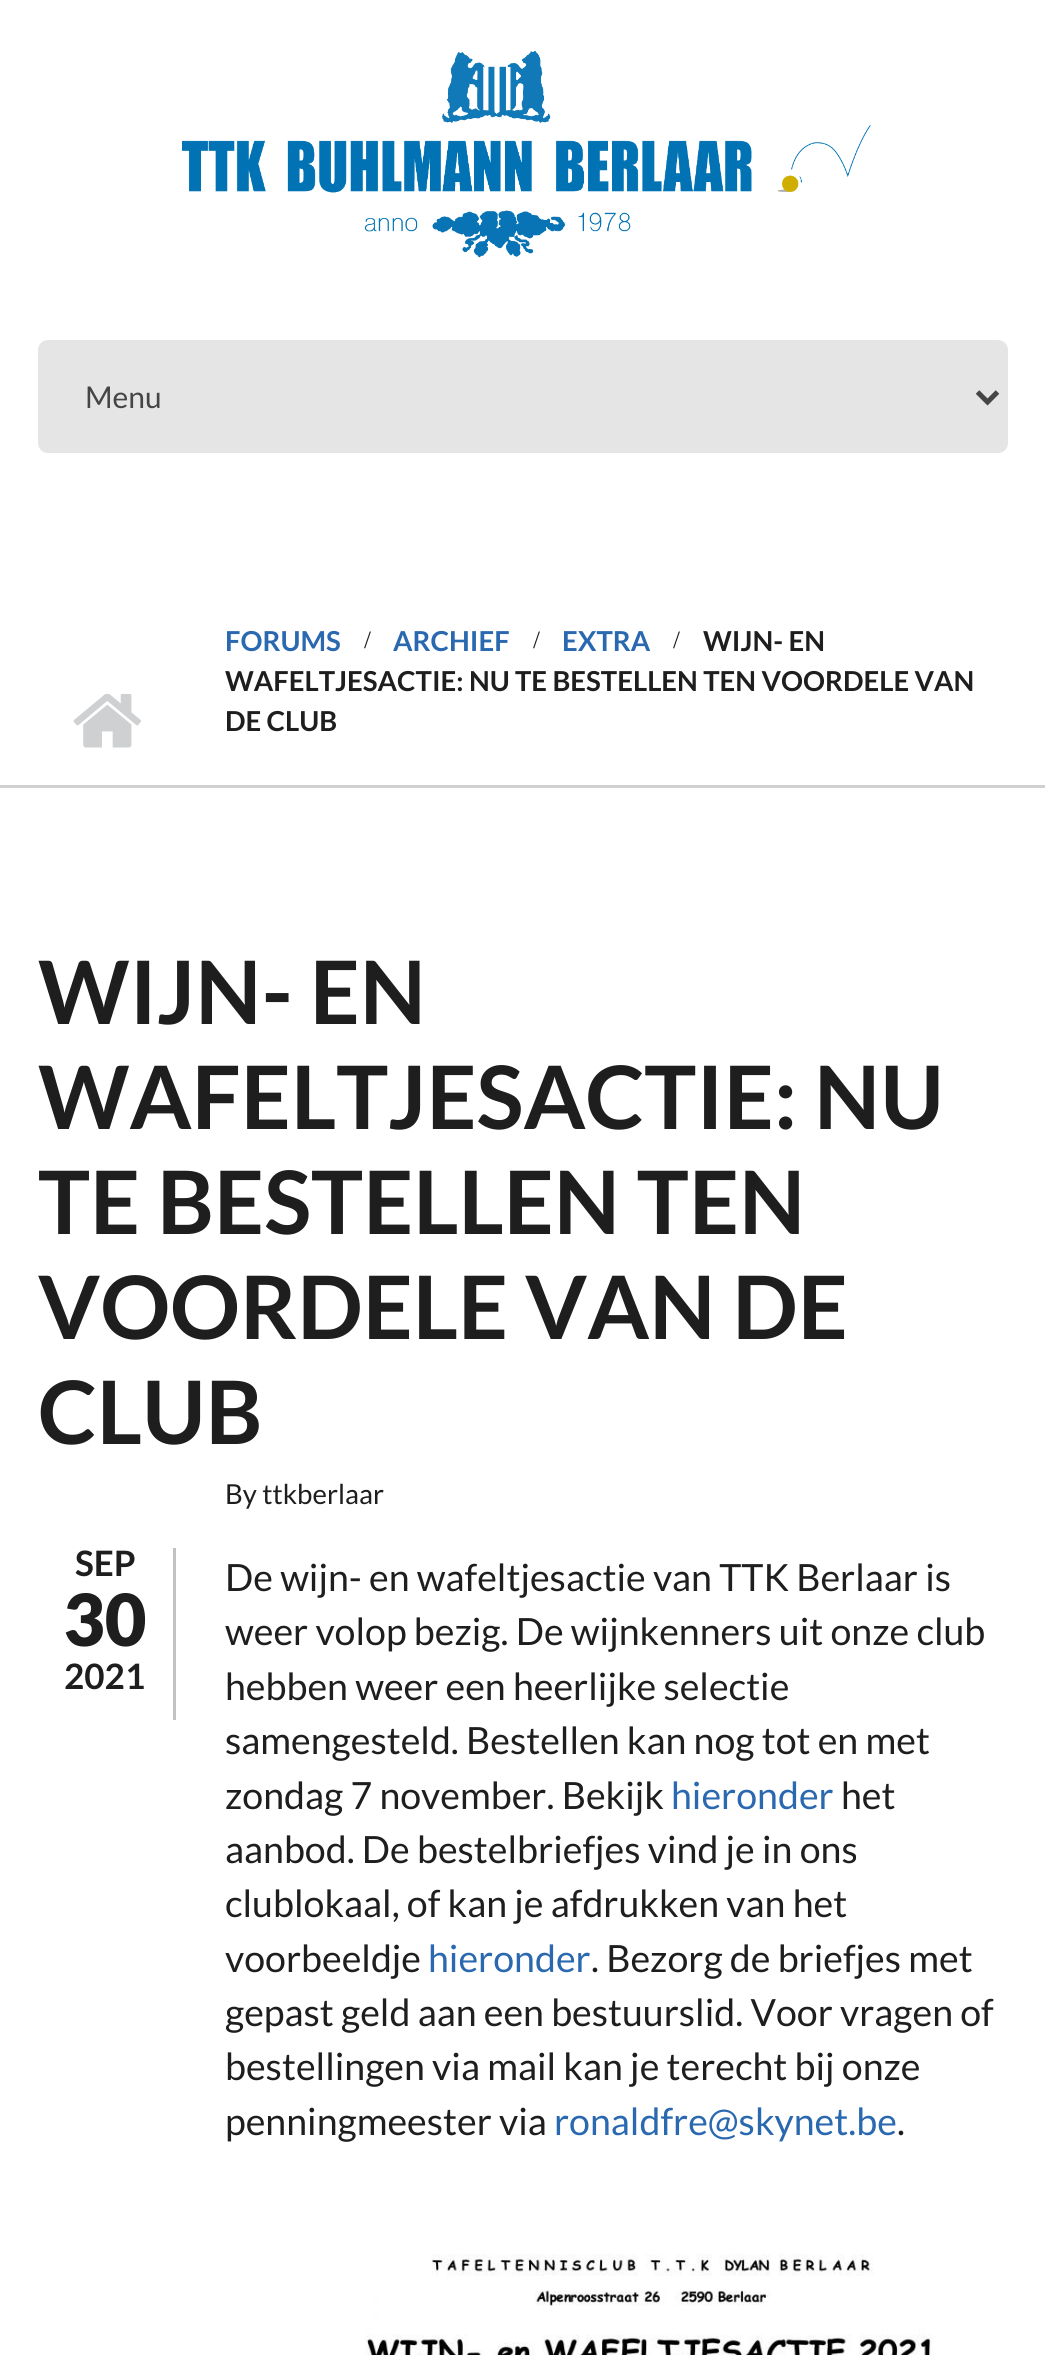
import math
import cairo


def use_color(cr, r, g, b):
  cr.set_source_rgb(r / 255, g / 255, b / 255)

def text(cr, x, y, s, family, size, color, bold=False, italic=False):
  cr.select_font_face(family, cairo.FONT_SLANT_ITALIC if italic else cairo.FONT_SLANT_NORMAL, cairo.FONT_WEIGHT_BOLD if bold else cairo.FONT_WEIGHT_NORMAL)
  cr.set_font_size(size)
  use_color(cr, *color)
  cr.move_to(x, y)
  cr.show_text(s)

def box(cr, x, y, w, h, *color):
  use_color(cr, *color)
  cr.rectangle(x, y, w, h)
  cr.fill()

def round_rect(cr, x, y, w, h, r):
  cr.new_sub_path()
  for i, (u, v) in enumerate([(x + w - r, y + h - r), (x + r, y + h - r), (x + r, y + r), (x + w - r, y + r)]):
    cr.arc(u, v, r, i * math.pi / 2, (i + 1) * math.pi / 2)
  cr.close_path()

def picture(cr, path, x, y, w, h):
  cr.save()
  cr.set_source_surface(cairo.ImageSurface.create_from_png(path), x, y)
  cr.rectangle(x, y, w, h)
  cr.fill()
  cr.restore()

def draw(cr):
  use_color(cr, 255, 255, 255)
  cr.paint()
  picture(cr, "img_01.png", 182, 51, 689, 207)
  use_color(cr, 229, 229, 229)
  round_rect(cr, 38, 340, 970, 113, 10)
  cr.fill()
  cr.new_path()
  cr.move_to(977.5, 392)
  cr.line_to(987.5, 402)
  cr.line_to(997.5, 392)
  use_color(cr, 69, 69, 69)
  cr.set_line_width(5)
  cr.stroke()
  box(cr, 0, 785, 1045, 3, 207, 208, 210)
  picture(cr, "img_02.png", 73, 693, 68, 55)
  box(cr, 173, 1548, 3, 172, 194, 194, 194)
  picture(cr, "img_03.png", 365, 2254, 568, 101)
  text(cr, 85, 408, "Menu", "Lato", 30, (69, 69, 69))
  text(cr, 225, 651, "FORUMS", "Lato", 27.5, (42, 104, 175), bold=True)
  text(cr, 364, 648, "/", "Liberation Serif", 25, (30, 30, 30))
  text(cr, 393, 651, "ARCHIEF", "Lato", 27.5, (42, 104, 175), bold=True)
  text(cr, 533, 648, "/", "Liberation Serif", 25, (30, 30, 30))
  text(cr, 562, 651, "EXTRA", "Lato", 27.5, (42, 104, 175), bold=True)
  text(cr, 673, 648, "/", "Liberation Serif", 25, (30, 30, 30))
  text(cr, 703, 651, "WIJN- EN", "Lato", 27.5, (30, 30, 30), bold=True)
  text(cr, 225, 691, "WAFELTJESACTIE: NU TE BESTELLEN TEN VOORDELE VAN", "Lato", 27.5, (30, 30, 30), bold=True)
  text(cr, 225, 731, "DE CLUB", "Lato", 27.5, (30, 30, 30), bold=True)
  text(cr, 38, 1024, "WIJN- EN", "Lato", 87.5, (30, 30, 30), bold=True)
  text(cr, 38, 1129, "WAFELTJESACTIE: NU", "Lato", 87.5, (30, 30, 30), bold=True)
  text(cr, 38, 1234, "TE BESTELLEN TEN", "Lato", 87.5, (30, 30, 30), bold=True)
  text(cr, 38, 1339, "VOORDELE VAN DE", "Lato", 87.5, (30, 30, 30), bold=True)
  text(cr, 38, 1444, "CLUB", "Lato", 87.5, (30, 30, 30), bold=True)
  text(cr, 75, 1576, "SEP", "Lato", 35, (30, 30, 30), bold=True)
  text(cr, 63, 1646, "30", "Lato Black", 72, (30, 30, 30))
  text(cr, 64, 1689, "2021", "Lato", 35, (30, 30, 30), bold=True)
  text(cr, 225, 1504, "By ttkberlaar", "Lato", 27.5, (30, 30, 30))
  text(cr, 225, 1591, "De wijn- en wafeltjesactie van TTK Berlaar is", "Lato", 37.5, (30, 30, 30))
  text(cr, 225, 1645, "weer volop bezig. De wijnkenners uit onze club", "Lato", 37.5, (30, 30, 30))
  text(cr, 225, 1700, "hebben weer een heerlijke selectie", "Lato", 37.5, (30, 30, 30))
  text(cr, 225, 1754, "samengesteld. Bestellen kan nog tot en met", "Lato", 37.5, (30, 30, 30))
  text(cr, 225, 1809, "zondag 7 november. Bekijk", "Lato", 37.5, (30, 30, 30))
  text(cr, 671, 1809, "hieronder", "Lato", 37.5, (42, 104, 175))
  text(cr, 841, 1809, "het", "Lato", 37.5, (30, 30, 30))
  text(cr, 225, 1863, "aanbod. De bestelbriefjes vind je in ons", "Lato", 37.5, (30, 30, 30))
  text(cr, 225, 1917, "clublokaal, of kan je afdrukken van het", "Lato", 37.5, (30, 30, 30))
  text(cr, 225, 1972, "voorbeeldje", "Lato", 37.5, (30, 30, 30))
  text(cr, 428, 1972, "hieronder", "Lato", 37.5, (42, 104, 175))
  text(cr, 591, 1972, ". Bezorg de briefjes met", "Lato", 37.5, (30, 30, 30))
  text(cr, 225, 2026, "gepast geld aan een bestuurslid. Voor vragen of", "Lato", 37.5, (30, 30, 30))
  text(cr, 225, 2080, "bestellingen via mail kan je terecht bij onze", "Lato", 37.5, (30, 30, 30))
  text(cr, 225, 2135, "penningmeester via", "Lato", 37.5, (30, 30, 30))
  text(cr, 554, 2135, "ronaldfre@skynet.be", "Lato", 37.5, (42, 104, 175))
  text(cr, 897, 2135, ".", "Lato", 37.5, (30, 30, 30))


surface = cairo.ImageSurface(cairo.FORMAT_RGB24, 1045, 2355)
cr = cairo.Context(surface)
options = cairo.FontOptions()
options.set_hint_metrics(cairo.HINT_METRICS_OFF)
options.set_hint_style(cairo.HINT_STYLE_NONE)
cr.set_font_options(options)
cr.set_miter_limit(4)
draw(cr)
surface.write_to_png("out.png")
